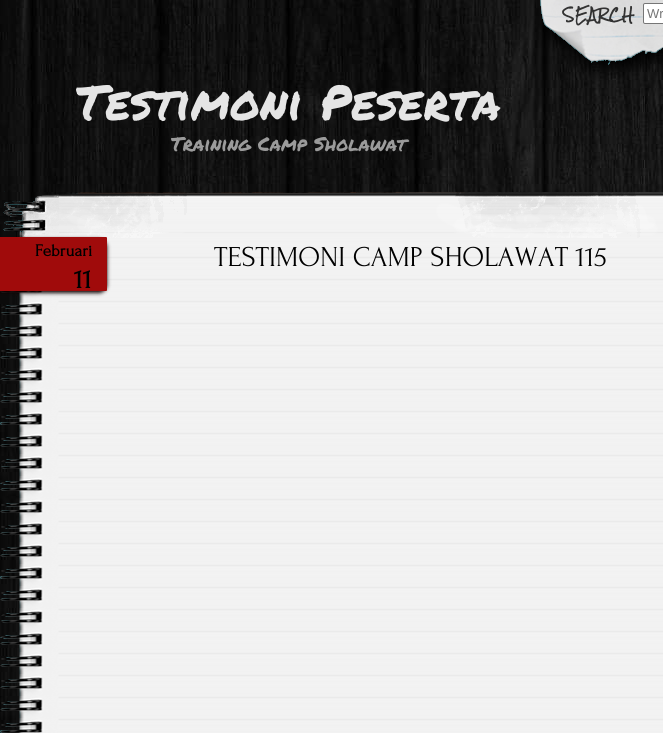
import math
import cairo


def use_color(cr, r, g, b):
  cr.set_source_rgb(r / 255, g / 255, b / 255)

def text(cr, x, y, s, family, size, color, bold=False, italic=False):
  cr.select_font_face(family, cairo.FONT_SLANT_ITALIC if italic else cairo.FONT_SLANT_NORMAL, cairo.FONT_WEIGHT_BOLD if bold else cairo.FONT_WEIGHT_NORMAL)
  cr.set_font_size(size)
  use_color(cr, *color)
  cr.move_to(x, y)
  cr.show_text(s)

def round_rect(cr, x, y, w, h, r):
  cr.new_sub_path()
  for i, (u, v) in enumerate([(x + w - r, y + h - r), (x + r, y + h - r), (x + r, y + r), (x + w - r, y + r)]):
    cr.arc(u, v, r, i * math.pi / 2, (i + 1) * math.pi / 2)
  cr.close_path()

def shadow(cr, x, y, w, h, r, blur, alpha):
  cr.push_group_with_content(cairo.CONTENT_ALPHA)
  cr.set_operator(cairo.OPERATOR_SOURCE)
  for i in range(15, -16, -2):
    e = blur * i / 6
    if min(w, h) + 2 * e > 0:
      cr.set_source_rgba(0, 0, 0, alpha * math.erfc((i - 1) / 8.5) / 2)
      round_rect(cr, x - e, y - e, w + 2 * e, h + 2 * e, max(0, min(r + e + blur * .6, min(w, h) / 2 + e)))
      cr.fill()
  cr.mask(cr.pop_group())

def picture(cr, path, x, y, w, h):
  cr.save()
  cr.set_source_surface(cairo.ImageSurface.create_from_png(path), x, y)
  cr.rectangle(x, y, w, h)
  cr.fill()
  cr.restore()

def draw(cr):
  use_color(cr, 255, 255, 255)
  cr.paint()
  picture(cr, "img_01.png", 0, 0, 663, 733)
  picture(cr, "img_02.png", 3, 0, 660, 238)
  use_color(cr, 255, 255, 255)
  round_rect(cr, 643.5, 3.5, 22, 20, 1.5)
  cr.fill_preserve()
  use_color(cr, 118, 118, 118)
  cr.set_line_width(1)
  cr.stroke()
  picture(cr, "img_03.png", 0, 238, 663, 495)
  use_color(cr, 17, 3, 3)
  shadow(cr, -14, 239, 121, 54, 8, 2, 1)
  use_color(cr, 160, 11, 11)
  cr.new_path()
  cr.move_to(0, 237)
  cr.line_to(106, 237)
  cr.curve_to(106.5, 237, 107, 237.5, 107, 238)
  cr.line_to(107, 290)
  cr.curve_to(107, 290.5, 106.5, 291, 106, 291)
  cr.line_to(-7, 291)
  cr.curve_to(-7.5, 291, -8, 290.5, -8, 290)
  cr.line_to(-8, 245)
  cr.curve_to(-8, 240.5, -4.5, 237, 0, 237)
  cr.close_path()
  cr.fill()
  text(cr, 647, 18, "Wr", "Liberation Sans", 13, (117, 117, 117))
  text(cr, 76, 120, "Testimoni Peserta", "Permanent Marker", 48, (229, 229, 229))
  text(cr, 171, 151, "Training Camp Sholawat", "Permanent Marker", 19.25, (155, 155, 155))
  text(cr, 35, 256, "Februari", "Forum", 17, (0, 0, 0), bold=True)
  text(cr, 74, 288, "11", "Forum", 27, (0, 0, 0), bold=True)
  text(cr, 214, 266, "TESTIMONI CAMP SHOLAWAT 115", "Forum", 28.75, (0, 0, 0))


surface = cairo.ImageSurface(cairo.FORMAT_RGB24, 663, 733)
cr = cairo.Context(surface)
options = cairo.FontOptions()
options.set_hint_metrics(cairo.HINT_METRICS_OFF)
options.set_hint_style(cairo.HINT_STYLE_NONE)
cr.set_font_options(options)
cr.set_miter_limit(4)
draw(cr)
surface.write_to_png("out.png")
